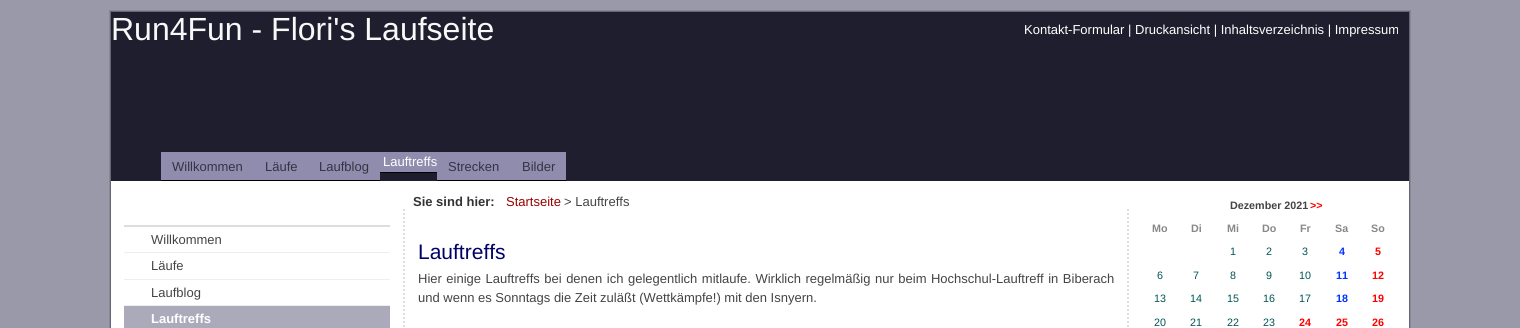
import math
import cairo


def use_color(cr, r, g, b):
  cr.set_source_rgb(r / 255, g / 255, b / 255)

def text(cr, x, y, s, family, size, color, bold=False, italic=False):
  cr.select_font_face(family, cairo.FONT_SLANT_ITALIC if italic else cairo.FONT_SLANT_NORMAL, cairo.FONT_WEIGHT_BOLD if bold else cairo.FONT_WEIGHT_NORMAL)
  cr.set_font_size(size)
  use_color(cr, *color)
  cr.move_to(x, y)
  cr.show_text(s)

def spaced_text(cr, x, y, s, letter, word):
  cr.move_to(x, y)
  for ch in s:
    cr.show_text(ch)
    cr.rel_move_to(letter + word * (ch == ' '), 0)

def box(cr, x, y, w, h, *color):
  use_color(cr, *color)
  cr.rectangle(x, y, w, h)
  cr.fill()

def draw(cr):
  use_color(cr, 153, 153, 170)
  cr.paint()
  cr.rectangle(109.5, 10.5, 1301, 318)
  use_color(cr, 136, 136, 153)
  cr.set_line_width(1)
  cr.stroke()
  box(cr, 111, 181, 1298, 147, 255, 255, 255)
  cr.rectangle(110.5, 11.5, 1299, 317)
  use_color(cr, 102, 102, 119)
  cr.stroke()
  box(cr, 111, 12, 1298, 169, 31, 30, 46)
  box(cr, 161, 152, 219, 28, 143, 140, 173)
  box(cr, 161, 180, 219, 1, 0, 0, 0)
  box(cr, 380, 152, 57, 20, 143, 140, 173)
  box(cr, 380, 172, 57, 1, 0, 0, 0)
  box(cr, 437, 152, 129, 28, 143, 140, 173)
  box(cr, 437, 180, 129, 1, 0, 0, 0)
  box(cr, 124, 225, 266, 2, 221, 221, 221)
  box(cr, 124, 252, 266, 1, 238, 238, 238)
  box(cr, 124, 279, 266, 1, 238, 238, 238)
  box(cr, 124, 305, 266, 1, 238, 238, 238)
  box(cr, 124, 306, 266, 22, 170, 170, 187)
  cr.new_path()
  cr.move_to(1128, 209)
  cr.line_to(1128, 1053)
  use_color(cr, 221, 221, 221)
  cr.set_line_width(2)
  cr.set_dash([2, 2])
  cr.stroke()
  cr.new_path()
  cr.move_to(404, 209)
  cr.line_to(404, 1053)
  cr.stroke()
  text(cr, 111, 40, "Run4Fun - Flori's Laufseite", "Liberation Sans", 32, (248, 248, 248))
  text(cr, 1024, 34, "Kontakt-Formular | Druckansicht | Inhaltsverzeichnis | Impressum", "Liberation Sans", 13, (255, 255, 255))
  text(cr, 172, 171, "Willkommen", "Liberation Sans", 13, (51, 51, 68))
  text(cr, 265, 171, "Läufe", "Liberation Sans", 13, (51, 51, 68))
  text(cr, 319, 171, "Laufblog", "Liberation Sans", 13, (51, 51, 68))
  text(cr, 383, 166, "Lauftreffs", "Liberation Sans", 13, (255, 255, 255))
  text(cr, 448, 171, "Strecken", "Liberation Sans", 13, (51, 51, 68))
  text(cr, 522, 171, "Bilder", "Liberation Sans", 13, (51, 51, 68))
  text(cr, 151, 244, "Willkommen", "Liberation Sans", 13, (68, 68, 68))
  text(cr, 151, 270, "Läufe", "Liberation Sans", 13, (68, 68, 68))
  text(cr, 151, 297, "Laufblog", "Liberation Sans", 13, (68, 68, 68))
  text(cr, 151, 323, "Lauftreffs", "Liberation Sans", 13, (255, 255, 255), bold=True)
  text(cr, 413, 206, "Sie sind hier:", "Liberation Sans", 13, (51, 51, 51), bold=True)
  text(cr, 506, 206, "Startseite", "Liberation Sans", 13, (153, 0, 0))
  text(cr, 564, 206, "> Lauftreffs", "Liberation Sans", 13, (68, 68, 68))
  text(cr, 1230, 209, "Dezember 2021", "Liberation Sans", 10.75, (68, 68, 68), bold=True)
  text(cr, 1310, 209, ">>", "Liberation Sans", 10.75, (255, 0, 0), bold=True)
  text(cr, 1152, 232, "Mo", "Liberation Sans", 10.75, (136, 136, 136), bold=True)
  text(cr, 1191, 232, "Di", "Liberation Sans", 10.75, (136, 136, 136), bold=True)
  text(cr, 1227, 232, "Mi", "Liberation Sans", 10.75, (136, 136, 136), bold=True)
  text(cr, 1262, 232, "Do", "Liberation Sans", 10.75, (136, 136, 136), bold=True)
  text(cr, 1300, 232, "Fr", "Liberation Sans", 10.75, (136, 136, 136), bold=True)
  text(cr, 1335, 232, "Sa", "Liberation Sans", 10.75, (136, 136, 136), bold=True)
  text(cr, 1371, 232, "So", "Liberation Sans", 10.75, (136, 136, 136), bold=True)
  text(cr, 1230, 255, "1", "Liberation Sans", 10.75, (0, 85, 85))
  text(cr, 1266, 255, "2", "Liberation Sans", 10.75, (0, 85, 85))
  text(cr, 1302, 255, "3", "Liberation Sans", 10.75, (0, 85, 85))
  text(cr, 1339, 255, "4", "Liberation Sans", 10.75, (0, 51, 255), bold=True)
  text(cr, 1375, 255, "5", "Liberation Sans", 10.75, (255, 0, 0), bold=True)
  text(cr, 1157, 279, "6", "Liberation Sans", 10.75, (0, 85, 85))
  text(cr, 1193, 279, "7", "Liberation Sans", 10.75, (0, 85, 85))
  text(cr, 1230, 279, "8", "Liberation Sans", 10.75, (0, 85, 85))
  text(cr, 1266, 279, "9", "Liberation Sans", 10.75, (0, 85, 85))
  text(cr, 1299, 279, "10", "Liberation Sans", 10.75, (0, 85, 85))
  text(cr, 1336, 279, "11", "Liberation Sans", 10.75, (0, 51, 255), bold=True)
  text(cr, 1372, 279, "12", "Liberation Sans", 10.75, (255, 0, 0), bold=True)
  text(cr, 1154, 302, "13", "Liberation Sans", 10.75, (0, 85, 85))
  text(cr, 1190, 302, "14", "Liberation Sans", 10.75, (0, 85, 85))
  text(cr, 1227, 302, "15", "Liberation Sans", 10.75, (0, 85, 85))
  text(cr, 1263, 302, "16", "Liberation Sans", 10.75, (0, 85, 85))
  text(cr, 1299, 302, "17", "Liberation Sans", 10.75, (0, 85, 85))
  text(cr, 1336, 302, "18", "Liberation Sans", 10.75, (0, 51, 255), bold=True)
  text(cr, 1372, 302, "19", "Liberation Sans", 10.75, (255, 0, 0), bold=True)
  text(cr, 1154, 326, "20", "Liberation Sans", 10.75, (0, 85, 85))
  text(cr, 1190, 326, "21", "Liberation Sans", 10.75, (0, 85, 85))
  text(cr, 1227, 326, "22", "Liberation Sans", 10.75, (0, 85, 85))
  text(cr, 1263, 326, "23", "Liberation Sans", 10.75, (0, 85, 85))
  text(cr, 1299, 326, "24", "Liberation Sans", 10.75, (255, 0, 0), bold=True)
  text(cr, 1336, 326, "25", "Liberation Sans", 10.75, (255, 0, 0), bold=True)
  text(cr, 1372, 326, "26", "Liberation Sans", 10.75, (255, 0, 0), bold=True)
  text(cr, 418, 259, "Lauftreffs", "Liberation Sans", 21, (0, 0, 102))
  cr.set_font_size(13)
  use_color(cr, 68, 68, 68)
  spaced_text(cr, 418, 283, "Hier einige Lauftreffs bei denen ich gelegentlich mitlaufe. Wirklich regelmäßig nur beim Hochschul-Lauftreff in Biberach", 0, 0.9)
  text(cr, 418, 302, "und wenn es Sonntags die Zeit zuläßt (Wettkämpfe!) mit den Isnyern.", "Liberation Sans", 13, (68, 68, 68))


surface = cairo.ImageSurface(cairo.FORMAT_RGB24, 1520, 328)
cr = cairo.Context(surface)
options = cairo.FontOptions()
options.set_hint_metrics(cairo.HINT_METRICS_OFF)
options.set_hint_style(cairo.HINT_STYLE_NONE)
cr.set_font_options(options)
cr.set_miter_limit(4)
draw(cr)
surface.write_to_png("out.png")
